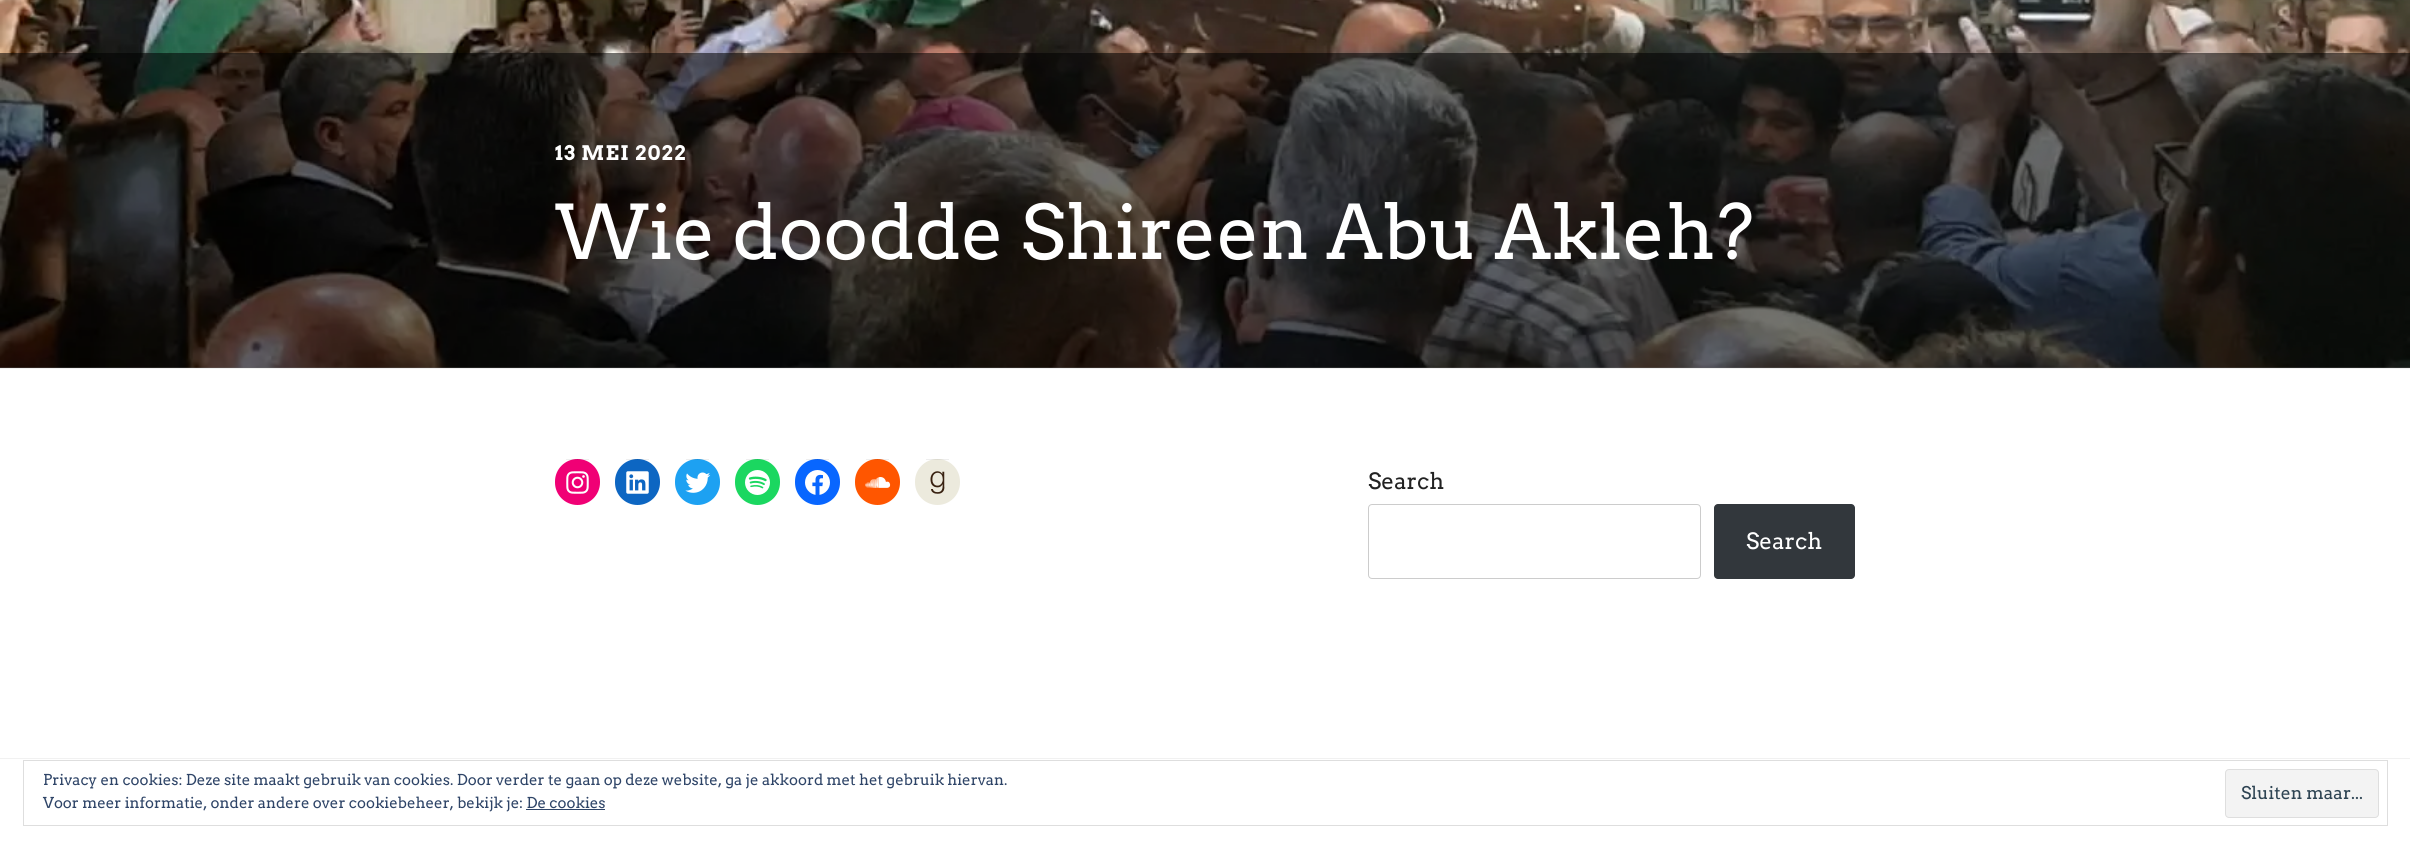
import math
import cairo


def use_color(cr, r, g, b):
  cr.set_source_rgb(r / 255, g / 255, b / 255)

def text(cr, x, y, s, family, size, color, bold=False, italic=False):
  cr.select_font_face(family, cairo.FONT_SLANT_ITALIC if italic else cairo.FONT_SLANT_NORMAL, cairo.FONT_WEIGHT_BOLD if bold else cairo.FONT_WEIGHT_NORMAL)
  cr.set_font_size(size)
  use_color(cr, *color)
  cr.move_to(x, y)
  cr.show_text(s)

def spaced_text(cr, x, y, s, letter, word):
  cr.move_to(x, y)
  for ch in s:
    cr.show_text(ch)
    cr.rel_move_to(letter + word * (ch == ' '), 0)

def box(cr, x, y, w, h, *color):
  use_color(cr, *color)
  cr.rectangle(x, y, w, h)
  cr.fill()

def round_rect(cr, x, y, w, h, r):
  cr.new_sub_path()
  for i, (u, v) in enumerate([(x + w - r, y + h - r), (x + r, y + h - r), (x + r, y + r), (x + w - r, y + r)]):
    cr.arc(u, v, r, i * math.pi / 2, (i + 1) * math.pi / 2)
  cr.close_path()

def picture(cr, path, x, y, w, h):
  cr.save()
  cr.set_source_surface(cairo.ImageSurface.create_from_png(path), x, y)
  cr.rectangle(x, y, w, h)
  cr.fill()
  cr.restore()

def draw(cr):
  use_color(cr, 255, 255, 255)
  cr.paint()
  picture(cr, "img_01.png", 0, 0, 2410, 368)
  cr.set_source_rgba(0, 0, 0, 0.55)
  cr.rectangle(0, 53, 2410, 315)
  cr.fill()
  box(cr, 0, 368, 2410, 1, 241, 241, 241)
  use_color(cr, 240, 0, 117)
  round_rect(cr, 555, 459, 45, 46, 22.5)
  cr.fill()
  cr.set_source_rgba(0, 0, 0, 0.07)
  cr.rectangle(566, 459, 23, 1)
  cr.fill()
  picture(cr, "img_02.png", 566, 471, 23, 23)
  use_color(cr, 13, 102, 194)
  round_rect(cr, 615, 459, 45, 46, 22.5)
  cr.fill()
  cr.set_source_rgba(0, 0, 0, 0.07)
  cr.rectangle(626, 459, 23, 1)
  cr.fill()
  picture(cr, "img_03.png", 626, 471, 23, 23)
  use_color(cr, 29, 161, 242)
  round_rect(cr, 675, 459, 45, 46, 22.5)
  cr.fill()
  cr.set_source_rgba(0, 0, 0, 0.07)
  cr.rectangle(686, 459, 23, 1)
  cr.fill()
  picture(cr, "img_04.png", 685, 472, 26, 21)
  use_color(cr, 27, 215, 96)
  round_rect(cr, 735, 459, 45, 46, 22.5)
  cr.fill()
  cr.set_source_rgba(0, 0, 0, 0.07)
  cr.rectangle(746, 459, 23, 1)
  cr.fill()
  picture(cr, "img_05.png", 745, 470, 25, 25)
  use_color(cr, 8, 102, 255)
  round_rect(cr, 795, 459, 45, 46, 22.5)
  cr.fill()
  cr.set_source_rgba(0, 0, 0, 0.07)
  cr.rectangle(806, 459, 23, 1)
  cr.fill()
  picture(cr, "img_06.png", 805, 470, 25, 25)
  use_color(cr, 255, 86, 0)
  round_rect(cr, 855, 459, 45, 46, 22.5)
  cr.fill()
  cr.set_source_rgba(0, 0, 0, 0.07)
  cr.rectangle(866, 459, 23, 1)
  cr.fill()
  picture(cr, "img_07.png", 865, 477, 26, 11)
  use_color(cr, 236, 234, 221)
  round_rect(cr, 915, 459, 45, 46, 22.5)
  cr.fill()
  cr.set_source_rgba(0, 0, 0, 0.07)
  cr.rectangle(926, 459, 23, 1)
  cr.fill()
  picture(cr, "img_08.png", 930, 471, 15, 23)
  round_rect(cr, 1368.5, 504.5, 332, 74, 3.5)
  use_color(cr, 204, 204, 204)
  cr.set_line_width(1)
  cr.stroke()
  use_color(cr, 50, 55, 60)
  round_rect(cr, 1714, 504, 141, 75, 4)
  cr.fill()
  box(cr, 0, 758, 2410, 1, 241, 241, 241)
  cr.rectangle(23.5, 760.5, 2364, 65)
  use_color(cr, 222, 222, 222)
  cr.stroke()
  use_color(cr, 243, 243, 243)
  round_rect(cr, 2225.5, 769.5, 153, 48, 3.5)
  cr.fill_preserve()
  use_color(cr, 222, 222, 222)
  cr.stroke()
  box(cr, 526, 809, 79, 1, 46, 68, 103)
  cr.select_font_face("Arvo", cairo.FONT_SLANT_NORMAL, cairo.FONT_WEIGHT_BOLD)
  cr.set_font_size(20)
  use_color(cr, 255, 255, 255)
  spaced_text(cr, 555, 160, "13 MEI 2022", 1.25, 0)
  text(cr, 555, 259, "Wie doodde Shireen Abu Akleh?", "Arvo", 75, (255, 255, 255))
  text(cr, 1368, 489, "Search", "Arvo", 22.5, (34, 34, 34))
  text(cr, 1746, 549, "Search", "Arvo", 22.5, (255, 255, 255))
  text(cr, 43, 785, "Privacy en cookies: Deze site maakt gebruik van cookies. Door verder te gaan op deze website, ga je akkoord met het gebruik hiervan.", "Arvo", 15, (46, 68, 103))
  text(cr, 2241, 799, "Sluiten maar...", "Arvo", 17.5, (46, 68, 83))
  text(cr, 43, 808, "Voor meer informatie, onder andere over cookiebeheer, bekijk je: De cookies", "Arvo", 15, (46, 68, 103))


surface = cairo.ImageSurface(cairo.FORMAT_RGB24, 2410, 848)
cr = cairo.Context(surface)
options = cairo.FontOptions()
options.set_hint_metrics(cairo.HINT_METRICS_OFF)
options.set_hint_style(cairo.HINT_STYLE_NONE)
cr.set_font_options(options)
cr.set_miter_limit(4)
draw(cr)
surface.write_to_png("out.png")
